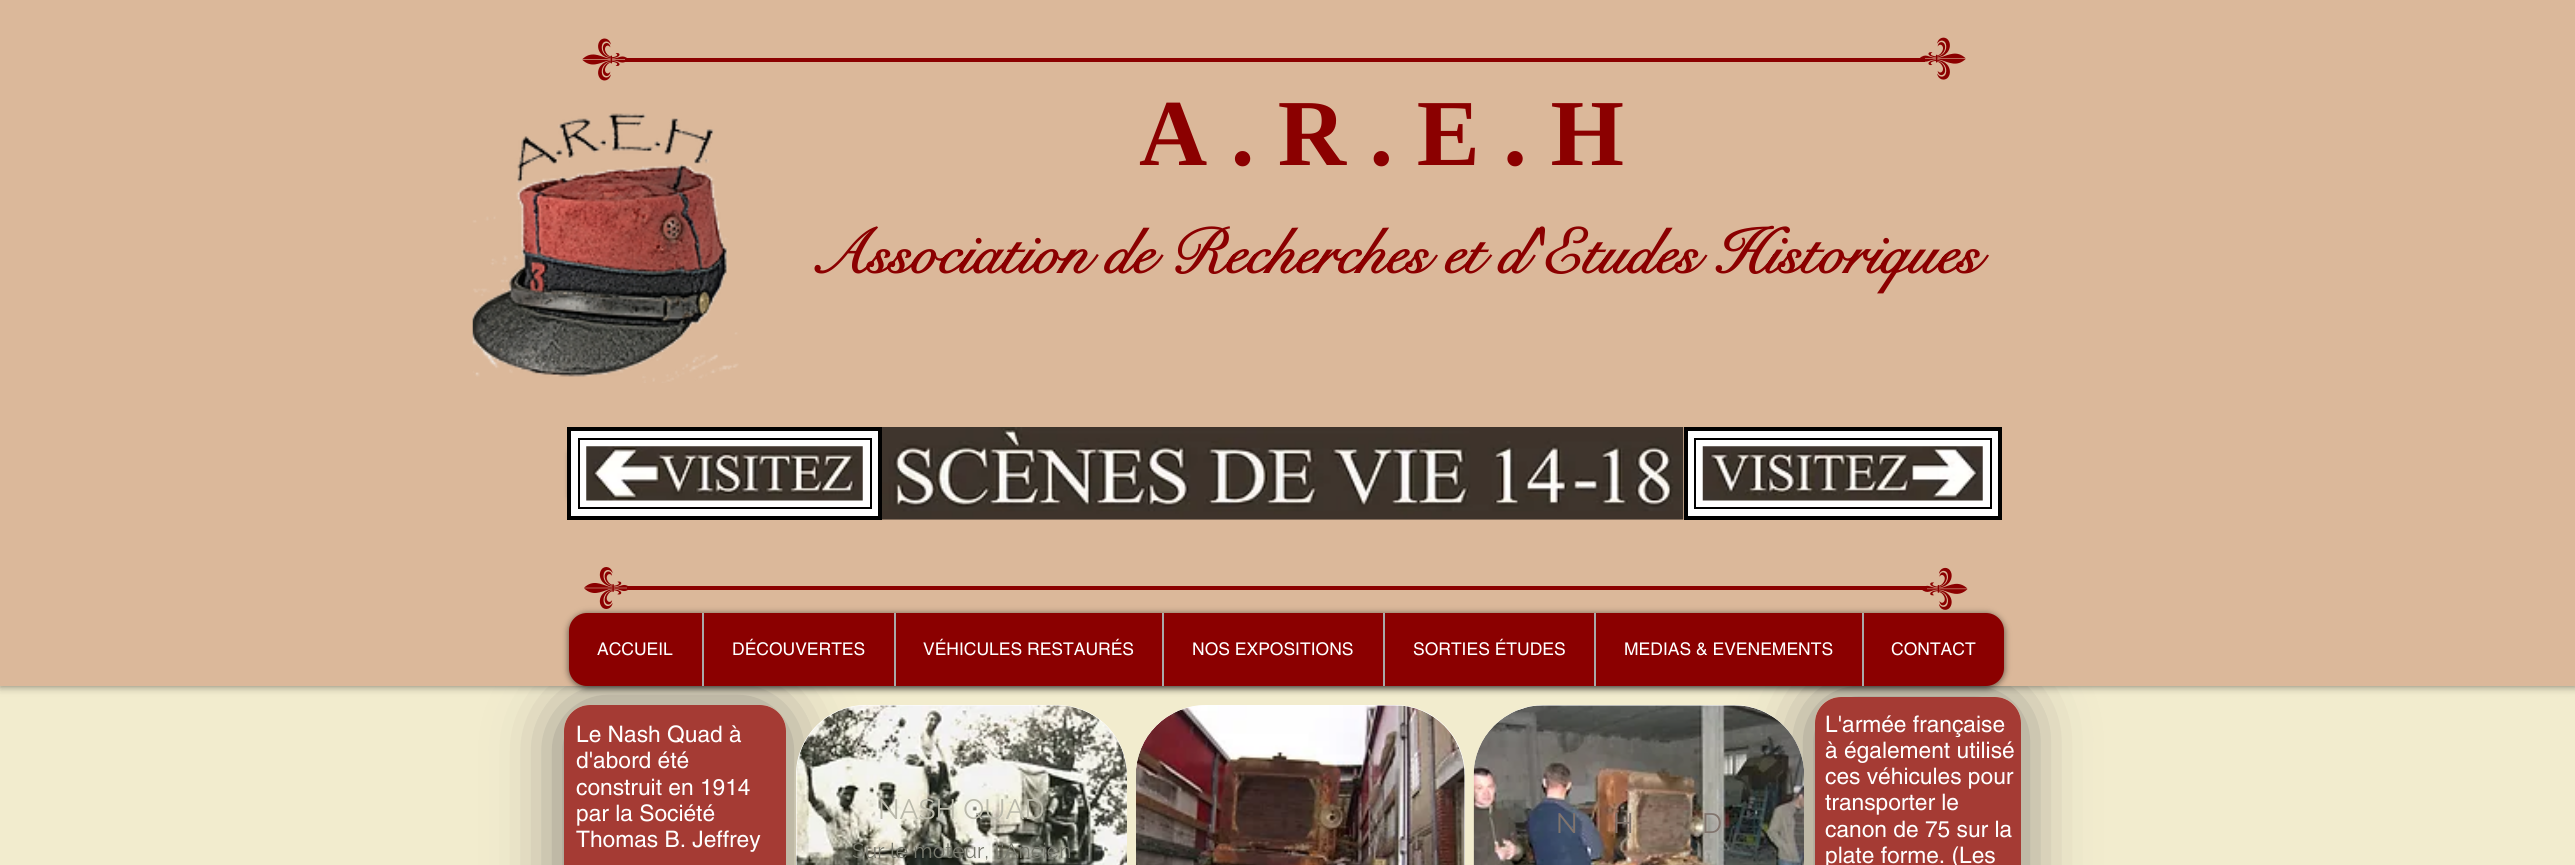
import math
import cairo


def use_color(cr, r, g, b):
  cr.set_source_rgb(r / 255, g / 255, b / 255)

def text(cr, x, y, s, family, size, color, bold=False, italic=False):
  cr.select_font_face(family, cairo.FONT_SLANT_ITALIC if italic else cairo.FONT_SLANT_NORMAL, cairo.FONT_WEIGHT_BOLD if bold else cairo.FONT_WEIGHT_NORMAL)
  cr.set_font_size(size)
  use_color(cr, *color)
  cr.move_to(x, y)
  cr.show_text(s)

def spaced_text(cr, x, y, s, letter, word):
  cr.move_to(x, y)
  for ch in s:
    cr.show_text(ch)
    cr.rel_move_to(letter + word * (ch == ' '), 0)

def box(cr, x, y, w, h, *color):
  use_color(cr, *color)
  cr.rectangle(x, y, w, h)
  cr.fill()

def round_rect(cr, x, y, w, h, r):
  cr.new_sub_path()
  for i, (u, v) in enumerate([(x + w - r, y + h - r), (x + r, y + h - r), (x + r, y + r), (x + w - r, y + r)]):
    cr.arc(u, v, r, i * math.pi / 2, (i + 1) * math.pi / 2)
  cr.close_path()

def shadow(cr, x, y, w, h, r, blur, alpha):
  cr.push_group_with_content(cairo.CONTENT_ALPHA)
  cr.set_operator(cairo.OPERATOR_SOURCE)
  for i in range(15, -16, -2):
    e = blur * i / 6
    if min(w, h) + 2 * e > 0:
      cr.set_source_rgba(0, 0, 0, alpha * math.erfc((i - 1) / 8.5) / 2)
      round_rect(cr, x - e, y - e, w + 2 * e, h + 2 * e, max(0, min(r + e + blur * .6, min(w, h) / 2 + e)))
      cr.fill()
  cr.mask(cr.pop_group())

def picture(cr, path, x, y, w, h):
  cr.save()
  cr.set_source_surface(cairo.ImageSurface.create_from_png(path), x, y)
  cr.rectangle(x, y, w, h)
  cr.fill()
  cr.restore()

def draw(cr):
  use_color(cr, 242, 236, 206)
  cr.paint()
  use_color(cr, 255, 255, 255)
  round_rect(cr, 1474, 705, 330, 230, 70)
  cr.fill()
  picture(cr, "img_11.png", 1473, 705, 331, 160)
  cr.save()
  cr.set_fill_rule(cairo.FILL_RULE_EVEN_ODD)
  cr.new_path()
  cr.move_to(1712, 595)
  cr.line_to(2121, 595)
  cr.line_to(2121, 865)
  cr.line_to(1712, 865)
  cr.close_path()
  cr.move_to(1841, 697)
  cr.line_to(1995, 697)
  cr.curve_to(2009.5, 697, 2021, 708.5, 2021, 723)
  cr.line_to(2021, 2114)
  cr.curve_to(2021, 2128.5, 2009.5, 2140, 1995, 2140)
  cr.line_to(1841, 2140)
  cr.curve_to(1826.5, 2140, 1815, 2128.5, 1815, 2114)
  cr.line_to(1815, 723)
  cr.curve_to(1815, 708.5, 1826.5, 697, 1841, 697)
  cr.close_path()
  cr.clip()
  use_color(cr, 113, 107, 107)
  shadow(cr, 1808, 691, 217, 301, 32, 31.5, 0.79)
  cr.restore()
  cr.set_source_rgba(0.545, 0, 0, 0.75)
  round_rect(cr, 1815, 697, 206, 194, 26)
  cr.fill()
  use_color(cr, 0, 0, 0)
  shadow(cr, 0, 0, 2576, 686, 0, 4.5, 0.5)
  cr.save()
  cr.set_fill_rule(cairo.FILL_RULE_EVEN_ODD)
  cr.new_path()
  cr.move_to(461, 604)
  cr.line_to(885, 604)
  cr.line_to(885, 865)
  cr.line_to(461, 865)
  cr.close_path()
  cr.move_to(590, 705)
  cr.line_to(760, 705)
  cr.curve_to(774.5, 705, 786, 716.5, 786, 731)
  cr.line_to(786, 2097)
  cr.curve_to(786, 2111.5, 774.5, 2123, 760, 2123)
  cr.line_to(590, 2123)
  cr.curve_to(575.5, 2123, 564, 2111.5, 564, 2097)
  cr.line_to(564, 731)
  cr.curve_to(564, 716.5, 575.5, 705, 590, 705)
  cr.close_path()
  cr.clip()
  use_color(cr, 113, 107, 107)
  shadow(cr, 557, 700, 232, 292, 32, 31.5, 0.79)
  cr.restore()
  box(cr, 0, 0, 2575, 686, 219, 184, 154)
  picture(cr, "img_02.png", 1920, 37, 46, 43)
  box(cr, 625, 58, 1300, 4, 139, 0, 0)
  picture(cr, "img_01.png", 582, 38, 45, 43)
  picture(cr, "img_03.png", 472, 113, 267, 270)
  use_color(cr, 0, 0, 0)
  shadow(cr, 569, 446, 213, 58, 9, 2.5, 0.5)
  use_color(cr, 255, 255, 255)
  cr.rectangle(569, 429, 311, 89)
  cr.fill_preserve()
  use_color(cr, 0, 0, 0)
  cr.set_line_width(4)
  cr.stroke()
  picture(cr, "img_04.png", 586, 446, 277, 55)
  cr.rectangle(579, 439, 292, 69)
  cr.set_line_width(2)
  cr.stroke()
  picture(cr, "img_05.png", 882, 427, 802, 93)
  use_color(cr, 255, 255, 255)
  cr.rectangle(1686, 429, 314, 89)
  cr.fill_preserve()
  use_color(cr, 0, 0, 0)
  cr.set_line_width(4)
  cr.stroke()
  picture(cr, "img_06.png", 1702, 446, 281, 55)
  cr.rectangle(1695, 439, 296, 69)
  cr.set_line_width(2)
  cr.stroke()
  picture(cr, "img_08.png", 1922, 567, 46, 43)
  box(cr, 627, 586, 1300, 4, 139, 0, 0)
  picture(cr, "img_07.png", 584, 567, 44, 42)
  use_color(cr, 0, 0, 0)
  shadow(cr, 569, 614, 1435, 74, 18, 3.5, 0.6)
  use_color(cr, 139, 0, 0)
  round_rect(cr, 569, 613, 1435, 73, 18)
  cr.fill()
  box(cr, 702, 613, 2, 73, 169, 169, 169)
  box(cr, 894, 613, 2, 73, 169, 169, 169)
  box(cr, 1162, 613, 2, 73, 169, 169, 169)
  box(cr, 1383, 613, 2, 73, 169, 169, 169)
  box(cr, 1594, 613, 2, 73, 169, 169, 169)
  box(cr, 1862, 613, 2, 73, 169, 169, 169)
  cr.set_source_rgba(0.545, 0, 0, 0.75)
  round_rect(cr, 564, 705, 222, 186, 26)
  cr.fill()
  use_color(cr, 255, 255, 255)
  round_rect(cr, 796, 705, 331, 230, 70)
  cr.fill()
  picture(cr, "img_09.png", 796, 705, 331, 160)
  round_rect(cr, 1136, 705, 329, 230, 70)
  cr.fill()
  picture(cr, "img_10.png", 1136, 705, 329, 160)
  cr.select_font_face("Liberation Serif", cairo.FONT_SLANT_NORMAL, cairo.FONT_WEIGHT_BOLD)
  cr.set_font_size(94.5)
  use_color(cr, 139, 0, 0)
  spaced_text(cr, 1139, 165, "A.R.E.H", 23.5, 0)
  text(cr, 809, 273, "Association de Recherches et d'Etudes Historiques", "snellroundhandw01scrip", 63, (139, 0, 0), bold=True)
  text(cr, 597, 655, "ACCUEIL", "helvetica", 17.5, (255, 255, 255))
  text(cr, 732, 655, "DÉCOUVERTES", "helvetica", 17.5, (255, 255, 255))
  text(cr, 923, 655, "VÉHICULES RESTAURÉS", "helvetica", 17.5, (255, 255, 255))
  text(cr, 1192, 655, "NOS EXPOSITIONS", "helvetica", 17.5, (255, 255, 255))
  text(cr, 1413, 655, "SORTIES ÉTUDES", "helvetica", 17.5, (255, 255, 255))
  text(cr, 1624, 655, "MEDIAS & EVENEMENTS", "helvetica", 17.5, (255, 255, 255))
  text(cr, 1891, 655, "CONTACT", "helvetica", 17.5, (255, 255, 255))
  text(cr, 576, 742, "Le Nash Quad à", "helvetica", 22.75, (255, 255, 255))
  text(cr, 576, 768, "d'abord été", "helvetica", 22.75, (255, 255, 255))
  text(cr, 576, 795, "construit en 1914", "helvetica", 22.75, (255, 255, 255))
  text(cr, 576, 821, "par la Société", "helvetica", 22.75, (255, 255, 255))
  text(cr, 576, 847, "Thomas B. Jeffrey", "helvetica", 22.75, (255, 255, 255))
  text(cr, 878, 819, "NASH QUAD", "Raleway", 28, (186, 185, 171))
  text(cr, 852, 858, "Sur le moteur, l'Ancien", "Raleway", 21, (120, 121, 110))
  text(cr, 1556, 833, "N", "Raleway", 28, (129, 116, 109))
  text(cr, 1613, 833, "H", "Raleway", 28, (129, 116, 109))
  text(cr, 1702, 833, "D", "Raleway", 28, (129, 116, 109))
  text(cr, 1825, 732, "L'armée française", "helvetica", 22.75, (255, 255, 255))
  text(cr, 1825, 758, "à également utilisé", "helvetica", 22.75, (255, 255, 255))
  text(cr, 1825, 784, "ces véhicules pour", "helvetica", 22.75, (255, 255, 255))
  text(cr, 1825, 810, "transporter le", "helvetica", 22.75, (255, 255, 255))
  text(cr, 1825, 837, "canon de 75 sur la", "helvetica", 22.75, (255, 255, 255))
  text(cr, 1825, 863, "plate forme. (Les", "helvetica", 22.75, (255, 255, 255))


surface = cairo.ImageSurface(cairo.FORMAT_RGB24, 2575, 865)
cr = cairo.Context(surface)
options = cairo.FontOptions()
options.set_hint_metrics(cairo.HINT_METRICS_OFF)
options.set_hint_style(cairo.HINT_STYLE_NONE)
cr.set_font_options(options)
cr.set_miter_limit(4)
draw(cr)
surface.write_to_png("out.png")
